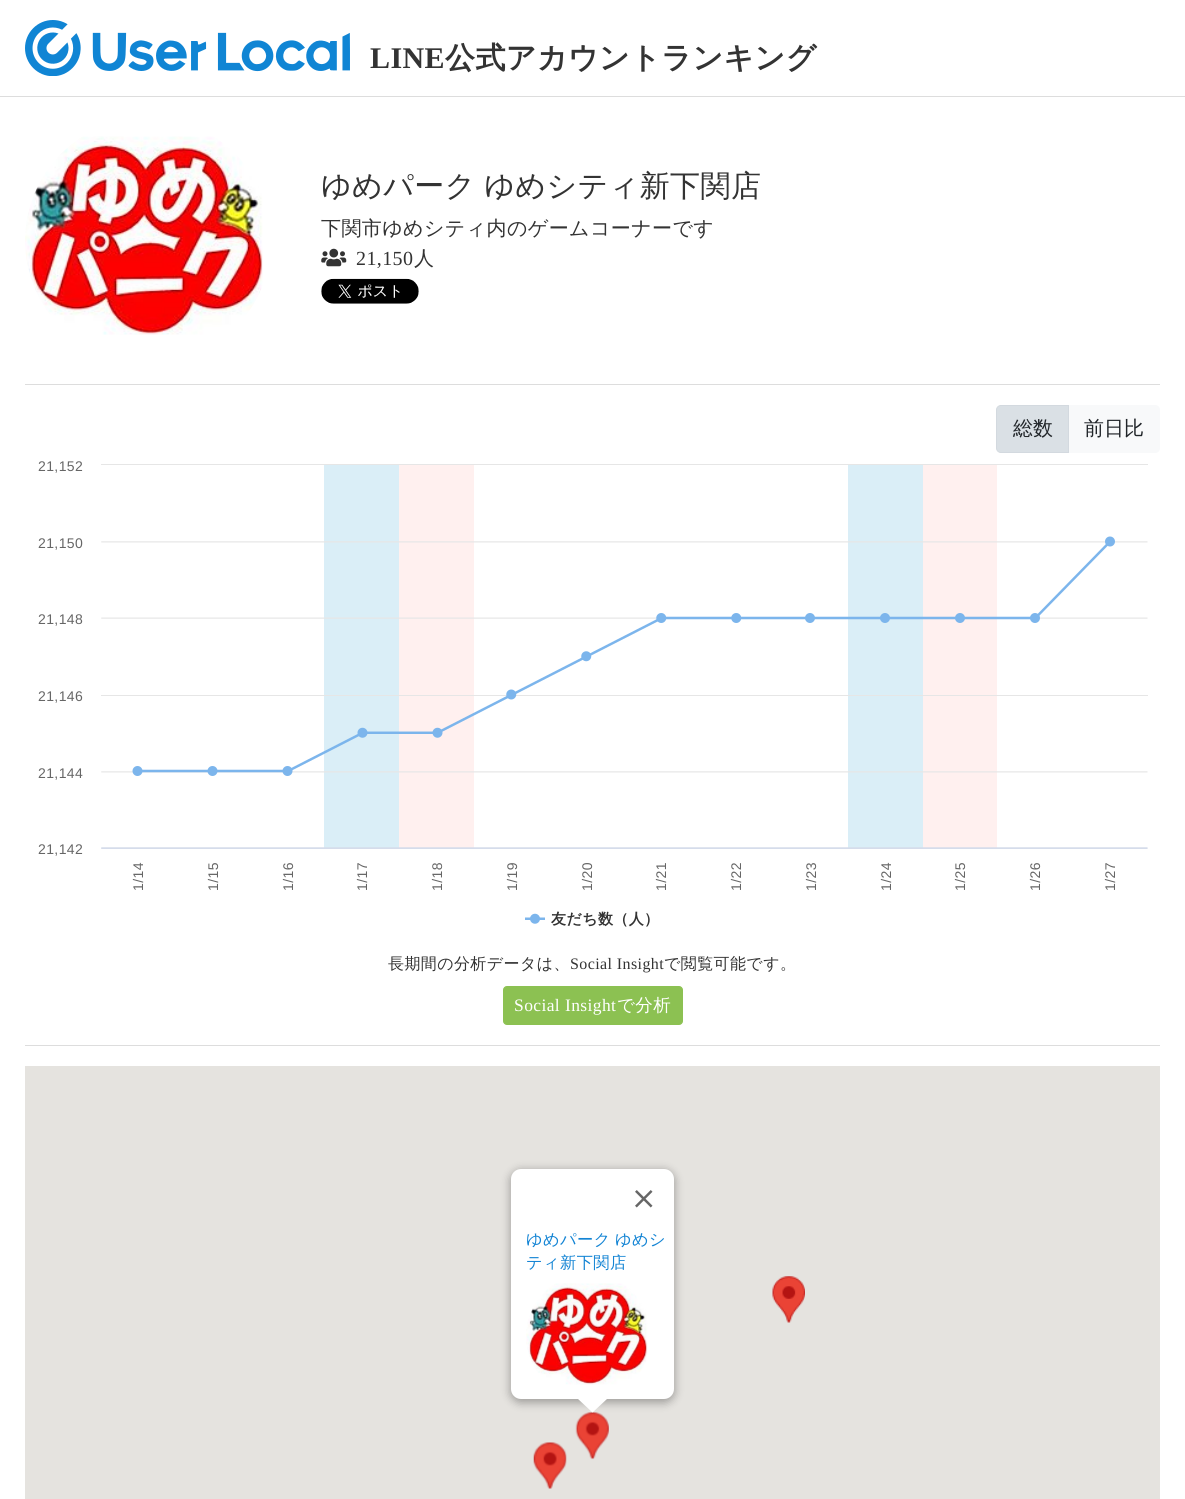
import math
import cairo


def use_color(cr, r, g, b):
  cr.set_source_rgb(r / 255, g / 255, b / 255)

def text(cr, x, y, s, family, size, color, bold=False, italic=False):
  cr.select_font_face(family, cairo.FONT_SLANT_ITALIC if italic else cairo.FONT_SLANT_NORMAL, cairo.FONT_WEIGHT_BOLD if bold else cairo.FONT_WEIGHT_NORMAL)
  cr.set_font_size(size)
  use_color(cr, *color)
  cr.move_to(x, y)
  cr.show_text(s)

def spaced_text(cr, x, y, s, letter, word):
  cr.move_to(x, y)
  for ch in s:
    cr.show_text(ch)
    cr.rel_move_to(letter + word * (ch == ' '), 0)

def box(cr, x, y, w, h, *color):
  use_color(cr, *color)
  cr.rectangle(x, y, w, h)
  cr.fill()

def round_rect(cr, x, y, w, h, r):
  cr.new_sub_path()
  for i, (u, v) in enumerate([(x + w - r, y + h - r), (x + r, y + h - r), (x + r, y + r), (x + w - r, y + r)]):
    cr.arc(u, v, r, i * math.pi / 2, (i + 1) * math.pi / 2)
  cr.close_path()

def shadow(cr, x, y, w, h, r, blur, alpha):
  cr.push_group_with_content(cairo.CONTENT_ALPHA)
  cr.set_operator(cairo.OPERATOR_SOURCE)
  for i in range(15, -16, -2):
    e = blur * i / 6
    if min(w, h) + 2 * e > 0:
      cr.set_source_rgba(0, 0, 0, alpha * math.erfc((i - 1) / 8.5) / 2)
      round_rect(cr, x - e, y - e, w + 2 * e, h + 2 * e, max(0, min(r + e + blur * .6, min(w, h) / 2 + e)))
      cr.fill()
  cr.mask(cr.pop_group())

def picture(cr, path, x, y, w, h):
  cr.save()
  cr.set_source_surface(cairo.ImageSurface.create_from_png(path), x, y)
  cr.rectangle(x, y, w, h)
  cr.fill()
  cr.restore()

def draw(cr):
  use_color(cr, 255, 255, 255)
  cr.paint()
  box(cr, 0, 96, 1185, 1, 221, 221, 221)
  picture(cr, "img_01.png", 25, 20, 325, 56)
  picture(cr, "img_02.png", 25, 136, 238, 199)
  picture(cr, "img_03.png", 321, 248, 26, 19)
  picture(cr, "img_04.png", 321, 278, 98, 26)
  box(cr, 25, 384, 1135, 1, 221, 221, 221)
  use_color(cr, 248, 249, 250)
  cr.new_path()
  cr.move_to(1068, 405)
  cr.line_to(1155, 405)
  cr.curve_to(1158, 405, 1160, 407, 1160, 410)
  cr.line_to(1160, 448)
  cr.curve_to(1160, 451, 1158, 453, 1155, 453)
  cr.line_to(1068, 453)
  cr.close_path()
  cr.fill()
  use_color(cr, 218, 224, 229)
  cr.new_path()
  cr.move_to(1001, 405.5)
  cr.line_to(1068.5, 405.5)
  cr.line_to(1068.5, 452.5)
  cr.line_to(1001, 452.5)
  cr.curve_to(998.5, 452.5, 996.5, 450.5, 996.5, 448)
  cr.line_to(996.5, 410)
  cr.curve_to(996.5, 407.5, 998.5, 405.5, 1001, 405.5)
  cr.close_path()
  cr.fill_preserve()
  use_color(cr, 211, 217, 223)
  cr.set_line_width(1)
  cr.stroke()
  picture(cr, "img_05.png", 101, 464, 1047, 460)
  use_color(cr, 140, 193, 82)
  round_rect(cr, 503.5, 986.5, 179, 38, 3.5)
  cr.fill_preserve()
  cr.stroke()
  box(cr, 25, 1045, 1135, 1, 221, 221, 221)
  box(cr, 25, 1066, 1135, 433, 229, 227, 223)
  picture(cr, "img_09.png", 575, 1412, 34, 48)
  use_color(cr, 0, 0, 0)
  shadow(cr, 510, 1170, 165, 233, 11, 4.5, 0.3)
  use_color(cr, 255, 255, 255)
  round_rect(cr, 511, 1169, 163, 230, 10)
  cr.fill()
  picture(cr, "img_06.png", 635, 1190, 18, 18)
  picture(cr, "img_07.png", 526, 1283, 122, 102)
  cr.new_path()
  cr.move_to(578, 1398)
  cr.line_to(578, 1399)
  cr.line_to(592.5, 1412.5)
  cr.line_to(608, 1398)
  cr.close_path()
  cr.fill()
  picture(cr, "img_08.png", 772, 1276, 33, 47)
  picture(cr, "img_10.png", 533, 1442, 34, 47)
  cr.select_font_face("Liberation Serif", cairo.FONT_SLANT_NORMAL, cairo.FONT_WEIGHT_BOLD)
  cr.set_font_size(30)
  use_color(cr, 51, 51, 51)
  spaced_text(cr, 370, 68, "LINE", 0.4, 0)
  cr.select_font_face("WenQuanYi Zen Hei", cairo.FONT_SLANT_NORMAL, cairo.FONT_WEIGHT_BOLD)
  spaced_text(cr, 445, 68, "公式アカウントランキング", 0.4, 0)
  cr.select_font_face("WenQuanYi Zen Hei Medium")
  spaced_text(cr, 321, 196, "ゆめパーク ゆめシティ新下関店", 0.4, -1)
  cr.set_font_size(20)
  spaced_text(cr, 321, 235, "下関市ゆめシティ内のゲームコーナーです", 0.4, 0)
  cr.select_font_face("Liberation Serif")
  spaced_text(cr, 356, 265, "21,150", 0.4, 0)
  cr.select_font_face("WenQuanYi Zen Hei Medium")
  spaced_text(cr, 414, 265, "人", 0.4, 0)
  text(cr, 1013, 435, "総数", "WenQuanYi Zen Hei Medium", 20, (33, 37, 41))
  text(cr, 1084, 435, "前日比", "WenQuanYi Zen Hei Medium", 20, (33, 37, 41))
  cr.select_font_face("Liberation Sans")
  cr.set_font_size(14)
  use_color(cr, 102, 102, 102)
  spaced_text(cr, 38, 471, "21,152", 0.4, 0)
  spaced_text(cr, 38, 548, "21,150", 0.4, 0)
  spaced_text(cr, 38, 624, "21,148", 0.4, 0)
  spaced_text(cr, 38, 701, "21,146", 0.4, 0)
  spaced_text(cr, 38, 778, "21,144", 0.4, 0)
  spaced_text(cr, 38, 854, "21,142", 0.4, 0)
  cr.save()
  cr.translate(143, 891)
  cr.rotate(-90 * math.pi / 180)
  spaced_text(cr, 0, 0, "1/14", 0.4, 0)
  cr.restore()
  cr.save()
  cr.translate(218, 891)
  cr.rotate(-90 * math.pi / 180)
  spaced_text(cr, 0, 0, "1/15", 0.4, 0)
  cr.restore()
  cr.save()
  cr.translate(293, 891)
  cr.rotate(-90 * math.pi / 180)
  spaced_text(cr, 0, 0, "1/16", 0.4, 0)
  cr.restore()
  cr.save()
  cr.translate(367, 891)
  cr.rotate(-90 * math.pi / 180)
  spaced_text(cr, 0, 0, "1/17", 0.4, 0)
  cr.restore()
  cr.save()
  cr.translate(442, 891)
  cr.rotate(-90 * math.pi / 180)
  spaced_text(cr, 0, 0, "1/18", 0.4, 0)
  cr.restore()
  cr.save()
  cr.translate(517, 891)
  cr.rotate(-90 * math.pi / 180)
  spaced_text(cr, 0, 0, "1/19", 0.4, 0)
  cr.restore()
  cr.save()
  cr.translate(592, 891)
  cr.rotate(-90 * math.pi / 180)
  spaced_text(cr, 0, 0, "1/20", 0.4, 0)
  cr.restore()
  cr.save()
  cr.translate(666, 891)
  cr.rotate(-90 * math.pi / 180)
  spaced_text(cr, 0, 0, "1/21", 0.4, 0)
  cr.restore()
  cr.save()
  cr.translate(741, 891)
  cr.rotate(-90 * math.pi / 180)
  spaced_text(cr, 0, 0, "1/22", 0.4, 0)
  cr.restore()
  cr.save()
  cr.translate(816, 891)
  cr.rotate(-90 * math.pi / 180)
  spaced_text(cr, 0, 0, "1/23", 0.4, 0)
  cr.restore()
  cr.save()
  cr.translate(891, 891)
  cr.rotate(-90 * math.pi / 180)
  spaced_text(cr, 0, 0, "1/24", 0.4, 0)
  cr.restore()
  cr.save()
  cr.translate(965, 891)
  cr.rotate(-90 * math.pi / 180)
  spaced_text(cr, 0, 0, "1/25", 0.4, 0)
  cr.restore()
  cr.save()
  cr.translate(1040, 891)
  cr.rotate(-90 * math.pi / 180)
  spaced_text(cr, 0, 0, "1/26", 0.4, 0)
  cr.restore()
  cr.save()
  cr.translate(1115, 891)
  cr.rotate(-90 * math.pi / 180)
  spaced_text(cr, 0, 0, "1/27", 0.4, 0)
  cr.restore()
  cr.select_font_face("WenQuanYi Zen Hei", cairo.FONT_SLANT_NORMAL, cairo.FONT_WEIGHT_BOLD)
  cr.set_font_size(15)
  use_color(cr, 51, 51, 51)
  spaced_text(cr, 551, 924, "友だち数（人）", 0.4, 0)
  cr.select_font_face("WenQuanYi Zen Hei Medium")
  cr.set_font_size(16)
  spaced_text(cr, 388, 969, "長期間の分析データは、", 0.4, 0)
  cr.select_font_face("Liberation Serif")
  spaced_text(cr, 570, 969, "Social Insight", 0.4, 0)
  cr.select_font_face("WenQuanYi Zen Hei Medium")
  spaced_text(cr, 664, 969, "で閲覧可能です。", 0.4, 0)
  cr.select_font_face("Liberation Serif")
  cr.set_font_size(17.5)
  use_color(cr, 255, 255, 255)
  spaced_text(cr, 514, 1011, "Social Insight", 0.4, 0)
  cr.select_font_face("WenQuanYi Zen Hei Medium")
  spaced_text(cr, 617, 1011, "で分析", 0.4, 0)
  cr.set_font_size(16.25)
  use_color(cr, 19, 132, 212)
  spaced_text(cr, 526, 1245, "ゆめパーク ゆめシ", 0.4, -1)
  spaced_text(cr, 526, 1268, "ティ新下関店", 0.4, 0)


surface = cairo.ImageSurface(cairo.FORMAT_RGB24, 1185, 1499)
cr = cairo.Context(surface)
options = cairo.FontOptions()
options.set_hint_metrics(cairo.HINT_METRICS_OFF)
options.set_hint_style(cairo.HINT_STYLE_NONE)
cr.set_font_options(options)
cr.set_miter_limit(4)
draw(cr)
surface.write_to_png("out.png")
